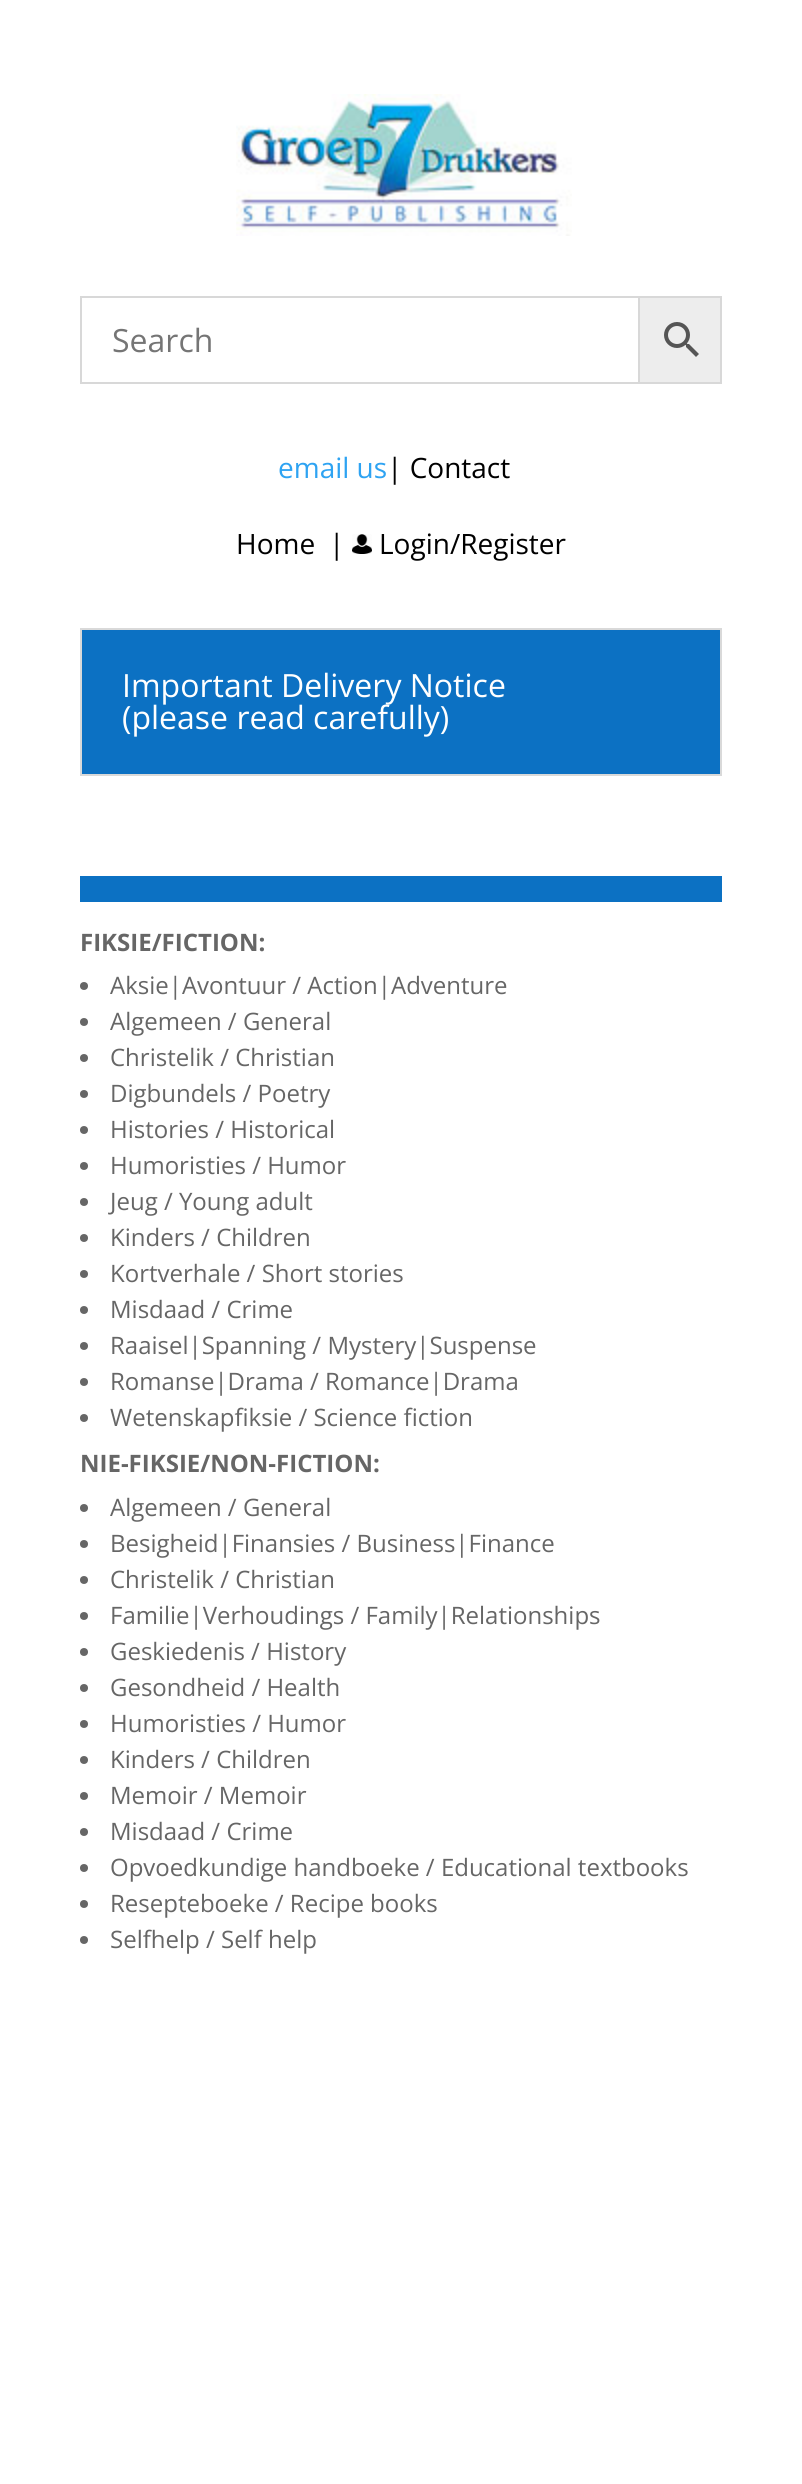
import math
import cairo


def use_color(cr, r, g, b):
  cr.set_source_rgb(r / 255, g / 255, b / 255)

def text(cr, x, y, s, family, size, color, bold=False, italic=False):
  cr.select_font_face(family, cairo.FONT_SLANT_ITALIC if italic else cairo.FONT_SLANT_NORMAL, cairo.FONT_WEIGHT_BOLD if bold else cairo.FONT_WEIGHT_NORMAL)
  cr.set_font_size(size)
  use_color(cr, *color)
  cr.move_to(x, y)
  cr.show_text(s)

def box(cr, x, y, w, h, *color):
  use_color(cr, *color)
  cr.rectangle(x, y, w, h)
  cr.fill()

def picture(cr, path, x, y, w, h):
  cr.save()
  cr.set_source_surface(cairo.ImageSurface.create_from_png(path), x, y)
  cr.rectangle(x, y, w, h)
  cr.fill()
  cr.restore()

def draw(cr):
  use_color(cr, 255, 255, 255)
  cr.paint()
  picture(cr, "img_01.png", 236, 94, 336, 142)
  use_color(cr, 237, 237, 237)
  cr.rectangle(639, 297, 82, 86)
  cr.fill_preserve()
  use_color(cr, 216, 216, 216)
  cr.stroke()
  cr.rectangle(81, 297, 558, 86)
  cr.stroke()
  picture(cr, "img_02.png", 664, 322, 35, 35)
  picture(cr, "img_03.png", 352, 534, 20, 20)
  use_color(cr, 12, 113, 195)
  cr.rectangle(81, 629, 640, 146)
  cr.fill_preserve()
  use_color(cr, 217, 217, 217)
  cr.stroke()
  box(cr, 80, 876, 642, 26, 12, 113, 195)
  use_color(cr, 102, 102, 102)
  cr.arc(84, 986, 4, 0, 2 * math.pi)
  cr.fill()
  cr.arc(84, 1022, 4, 0, 2 * math.pi)
  cr.fill()
  cr.arc(84, 1058, 4, 0, 2 * math.pi)
  cr.fill()
  cr.arc(84, 1094, 4, 0, 2 * math.pi)
  cr.fill()
  cr.arc(84, 1130, 4, 0, 2 * math.pi)
  cr.fill()
  cr.arc(84, 1166, 4, 0, 2 * math.pi)
  cr.fill()
  cr.arc(84, 1202, 4, 0, 2 * math.pi)
  cr.fill()
  cr.arc(84, 1238, 4, 0, 2 * math.pi)
  cr.fill()
  cr.arc(84, 1274, 4, 0, 2 * math.pi)
  cr.fill()
  cr.arc(84, 1310, 4, 0, 2 * math.pi)
  cr.fill()
  cr.arc(84, 1346, 4, 0, 2 * math.pi)
  cr.fill()
  cr.arc(84, 1382, 4, 0, 2 * math.pi)
  cr.fill()
  cr.arc(84, 1418, 4, 0, 2 * math.pi)
  cr.fill()
  cr.arc(84, 1508, 4, 0, 2 * math.pi)
  cr.fill()
  cr.arc(84, 1544, 4, 0, 2 * math.pi)
  cr.fill()
  cr.arc(84, 1580, 4, 0, 2 * math.pi)
  cr.fill()
  cr.arc(84, 1616, 4, 0, 2 * math.pi)
  cr.fill()
  cr.arc(84, 1652, 4, 0, 2 * math.pi)
  cr.fill()
  cr.arc(84, 1688, 4, 0, 2 * math.pi)
  cr.fill()
  cr.arc(84, 1724, 4, 0, 2 * math.pi)
  cr.fill()
  cr.arc(84, 1760, 4, 0, 2 * math.pi)
  cr.fill()
  cr.arc(84, 1796, 4, 0, 2 * math.pi)
  cr.fill()
  cr.arc(84, 1832, 4, 0, 2 * math.pi)
  cr.fill()
  cr.arc(84, 1868, 4, 0, 2 * math.pi)
  cr.fill()
  cr.arc(84, 1904, 4, 0, 2 * math.pi)
  cr.fill()
  cr.arc(84, 1940, 4, 0, 2 * math.pi)
  cr.fill()
  text(cr, 112, 352, "Search", "Open Sans", 32, (117, 117, 117))
  text(cr, 278, 478, "email us", "Open Sans", 28, (46, 163, 242))
  text(cr, 387, 478, "| Contact", "Open Sans", 28, (0, 0, 0))
  text(cr, 236, 554, "Home", "Open Sans", 28, (0, 0, 0))
  text(cr, 329, 554, "|", "Open Sans", 28, (0, 0, 0))
  text(cr, 379, 554, "Login/Register", "Open Sans", 28, (0, 0, 0))
  text(cr, 122, 697, "Important Delivery Notice", "Open Sans", 32, (255, 255, 255))
  text(cr, 122, 729, "(please read carefully)", "Open Sans", 32, (255, 255, 255))
  text(cr, 80, 951, "FIKSIE/FICTION:", "Open Sans", 24, (102, 102, 102), bold=True)
  text(cr, 110, 994, "Aksie|Avontuur / Action|Adventure", "Open Sans", 24, (102, 102, 102))
  text(cr, 110, 1030, "Algemeen / General", "Open Sans", 24, (102, 102, 102))
  text(cr, 110, 1066, "Christelik / Christian", "Open Sans", 24, (102, 102, 102))
  text(cr, 110, 1102, "Digbundels / Poetry", "Open Sans", 24, (102, 102, 102))
  text(cr, 110, 1138, "Histories / Historical", "Open Sans", 24, (102, 102, 102))
  text(cr, 110, 1174, "Humoristies / Humor", "Open Sans", 24, (102, 102, 102))
  text(cr, 110, 1210, "Jeug / Young adult", "Open Sans", 24, (102, 102, 102))
  text(cr, 110, 1246, "Kinders / Children", "Open Sans", 24, (102, 102, 102))
  text(cr, 110, 1282, "Kortverhale / Short stories", "Open Sans", 24, (102, 102, 102))
  text(cr, 110, 1318, "Misdaad / Crime", "Open Sans", 24, (102, 102, 102))
  text(cr, 110, 1354, "Raaisel|Spanning / Mystery|Suspense", "Open Sans", 24, (102, 102, 102))
  text(cr, 110, 1390, "Romanse|Drama / Romance|Drama", "Open Sans", 24, (102, 102, 102))
  text(cr, 110, 1426, "Wetenskapfiksie / Science fiction", "Open Sans", 24, (102, 102, 102))
  text(cr, 80, 1472, "NIE-FIKSIE/NON-FICTION:", "Open Sans", 24, (102, 102, 102), bold=True)
  text(cr, 110, 1516, "Algemeen / General", "Open Sans", 24, (102, 102, 102))
  text(cr, 110, 1552, "Besigheid|Finansies / Business|Finance", "Open Sans", 24, (102, 102, 102))
  text(cr, 110, 1588, "Christelik / Christian", "Open Sans", 24, (102, 102, 102))
  text(cr, 110, 1624, "Familie|Verhoudings / Family|Relationships", "Open Sans", 24, (102, 102, 102))
  text(cr, 110, 1660, "Geskiedenis / History", "Open Sans", 24, (102, 102, 102))
  text(cr, 110, 1696, "Gesondheid / Health", "Open Sans", 24, (102, 102, 102))
  text(cr, 110, 1732, "Humoristies / Humor", "Open Sans", 24, (102, 102, 102))
  text(cr, 110, 1768, "Kinders / Children", "Open Sans", 24, (102, 102, 102))
  text(cr, 110, 1804, "Memoir / Memoir", "Open Sans", 24, (102, 102, 102))
  text(cr, 110, 1840, "Misdaad / Crime", "Open Sans", 24, (102, 102, 102))
  text(cr, 110, 1876, "Opvoedkundige handboeke / Educational textbooks", "Open Sans", 24, (102, 102, 102))
  text(cr, 110, 1912, "Resepteboeke / Recipe books", "Open Sans", 24, (102, 102, 102))
  text(cr, 110, 1948, "Selfhelp / Self help", "Open Sans", 24, (102, 102, 102))


surface = cairo.ImageSurface(cairo.FORMAT_RGB24, 802, 2484)
cr = cairo.Context(surface)
options = cairo.FontOptions()
options.set_hint_metrics(cairo.HINT_METRICS_OFF)
options.set_hint_style(cairo.HINT_STYLE_NONE)
cr.set_font_options(options)
cr.set_miter_limit(4)
draw(cr)
surface.write_to_png("out.png")
